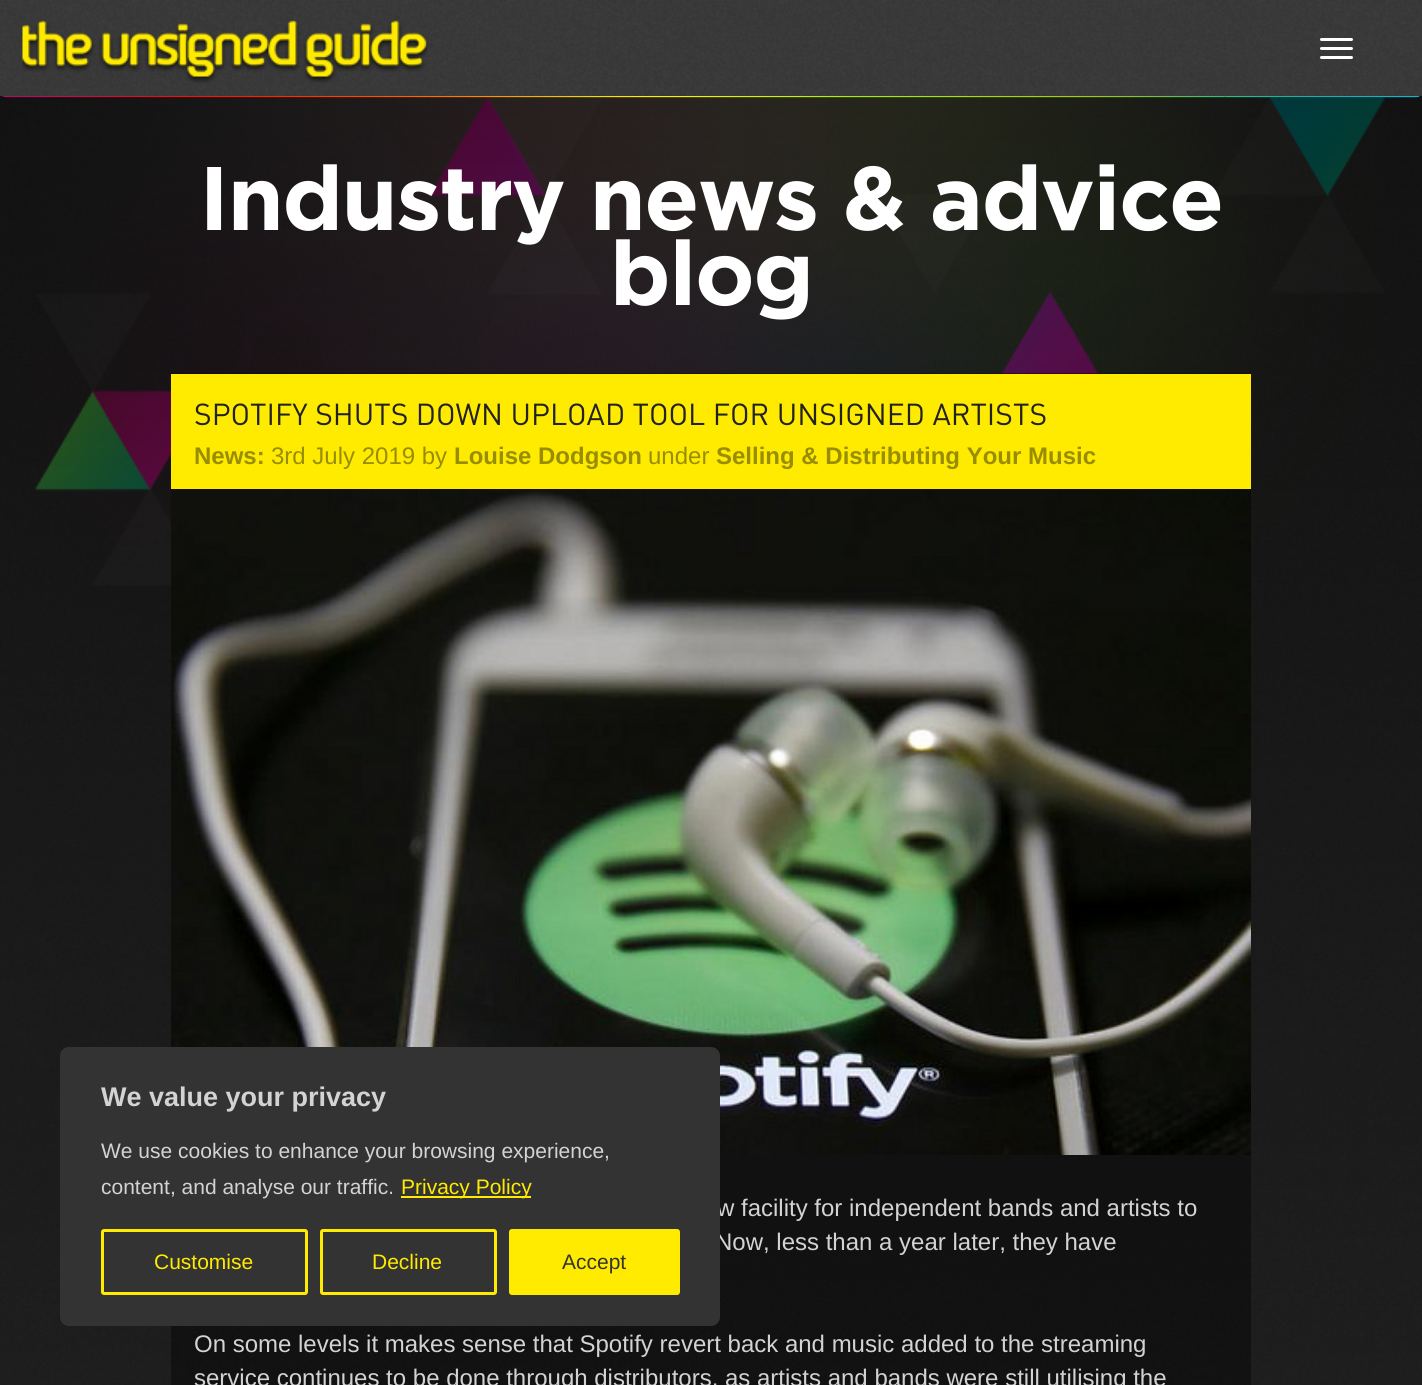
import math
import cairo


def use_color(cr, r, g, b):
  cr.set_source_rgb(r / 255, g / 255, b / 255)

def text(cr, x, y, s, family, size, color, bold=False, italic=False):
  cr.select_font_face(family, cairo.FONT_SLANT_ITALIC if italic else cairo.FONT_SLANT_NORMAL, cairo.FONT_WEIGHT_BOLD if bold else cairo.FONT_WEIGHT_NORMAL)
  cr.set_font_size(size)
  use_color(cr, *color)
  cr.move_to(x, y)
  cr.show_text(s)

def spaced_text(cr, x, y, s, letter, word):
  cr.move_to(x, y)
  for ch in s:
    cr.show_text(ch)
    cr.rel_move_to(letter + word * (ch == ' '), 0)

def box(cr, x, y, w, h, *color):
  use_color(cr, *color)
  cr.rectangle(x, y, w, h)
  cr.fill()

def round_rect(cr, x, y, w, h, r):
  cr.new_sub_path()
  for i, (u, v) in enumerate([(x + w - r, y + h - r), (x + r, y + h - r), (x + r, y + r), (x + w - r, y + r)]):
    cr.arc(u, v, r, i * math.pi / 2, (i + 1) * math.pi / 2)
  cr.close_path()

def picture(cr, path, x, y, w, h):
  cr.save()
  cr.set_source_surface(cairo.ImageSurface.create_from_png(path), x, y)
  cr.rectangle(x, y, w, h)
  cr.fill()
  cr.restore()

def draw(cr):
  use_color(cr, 255, 255, 255)
  cr.paint()
  picture(cr, "img_01.png", 0, 768, 1422, 617)
  picture(cr, "img_05.png", 0, 96, 1422, 672)
  gradient = cairo.LinearGradient(711, 0, 711, 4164)
  gradient.add_color_stop_rgba(0, 0, 0, 0, 0.7)
  gradient.add_color_stop_rgba(1, 0, 0, 0, 0)
  cr.set_source(gradient)
  cr.rectangle(0, 96, 1422, 1289)
  cr.fill()
  cr.set_source_rgba(0, 0, 0, 0.6)
  round_rect(cr, 0, 0, 1422, 98, 6)
  cr.fill()
  picture(cr, "img_02.png", 2, 96, 1418, 2)
  picture(cr, "img_03.png", 0, 0, 1422, 96)
  picture(cr, "img_04.png", 22, 20, 406, 63)
  use_color(cr, 255, 255, 255)
  round_rect(cr, 1320, 38, 33, 3, 1.5)
  cr.fill()
  round_rect(cr, 1320, 47, 33, 3, 1.5)
  cr.fill()
  round_rect(cr, 1320, 56, 33, 3, 1.5)
  cr.fill()
  cr.set_source_rgba(0, 0, 0, 0.4)
  cr.rectangle(171, 373, 1080, 1012)
  cr.fill()
  box(cr, 171, 374, 1080, 115, 255, 235, 0)
  picture(cr, "img_06.png", 171, 489, 1080, 666)
  cr.select_font_face("Gotham", cairo.FONT_SLANT_NORMAL, cairo.FONT_WEIGHT_BOLD)
  cr.set_font_size(90)
  use_color(cr, 255, 255, 255)
  spaced_text(cr, 199, 230, "Industry news & advice", -1.5, 0)
  spaced_text(cr, 610, 305, "blog", -1.5, 0)
  text(cr, 194, 425, "SPOTIFY SHUTS DOWN UPLOAD TOOL FOR UNSIGNED ARTISTS", "DIN", 30, (34, 34, 34))
  text(cr, 194, 464, "News:", "Liberation Sans", 24, (152, 140, 0), bold=True)
  text(cr, 271, 464, "3rd July 2019 by", "Liberation Sans", 24, (152, 140, 0))
  text(cr, 454, 464, "Louise Dodgson", "Liberation Sans", 24, (152, 140, 0), bold=True)
  text(cr, 648, 464, "under", "Liberation Sans", 24, (152, 140, 0))
  text(cr, 716, 464, "Selling & Distributing Your Music", "Liberation Sans", 24, (152, 140, 0), bold=True)
  text(cr, 717, 1216, "w facility for independent bands and artists to", "Liberation Sans", 24, (211, 211, 211))
  text(cr, 715, 1250, "Now, less than a year later, they have", "Liberation Sans", 24, (211, 211, 211))
  text(cr, 194, 1352, "On some levels it makes sense that Spotify revert back and music added to the streaming", "Liberation Sans", 24, (211, 211, 211))
  text(cr, 194, 1386, "service continues to be done through distributors, as artists and bands were still utilising the", "Liberation Sans", 24, (211, 211, 211))
  use_color(cr, 51, 51, 51)
  round_rect(cr, 61, 1048, 658, 277, 8)
  cr.fill_preserve()
  cr.stroke()
  text(cr, 101, 1106, "We value your privacy", "Liberation Sans", 27, (211, 211, 211), bold=True)
  text(cr, 101, 1158, "We use cookies to enhance your browsing experience,", "Liberation Sans", 21, (211, 211, 211))
  text(cr, 101, 1194, "content, and analyse our traffic.", "Liberation Sans", 21, (211, 211, 211))
  box(cr, 401, 1196, 130, 2, 255, 235, 0)
  text(cr, 401, 1194, "Privacy Policy", "Liberation Sans", 21, (255, 235, 0))
  round_rect(cr, 102.5, 1230.5, 204, 63, 1.5)
  cr.set_line_width(3)
  cr.stroke()
  text(cr, 154, 1269, "Customise", "Liberation Sans", 21, (255, 235, 0))
  round_rect(cr, 321.5, 1230.5, 174, 63, 1.5)
  cr.stroke()
  text(cr, 372, 1269, "Decline", "Liberation Sans", 21, (255, 235, 0))
  round_rect(cr, 510.5, 1230.5, 168, 63, 1.5)
  cr.fill_preserve()
  cr.stroke()
  text(cr, 562, 1269, "Accept", "Liberation Sans", 21, (51, 51, 51))


surface = cairo.ImageSurface(cairo.FORMAT_RGB24, 1422, 1385)
cr = cairo.Context(surface)
options = cairo.FontOptions()
options.set_hint_metrics(cairo.HINT_METRICS_OFF)
options.set_hint_style(cairo.HINT_STYLE_NONE)
cr.set_font_options(options)
cr.set_miter_limit(4)
draw(cr)
surface.write_to_png("out.png")
